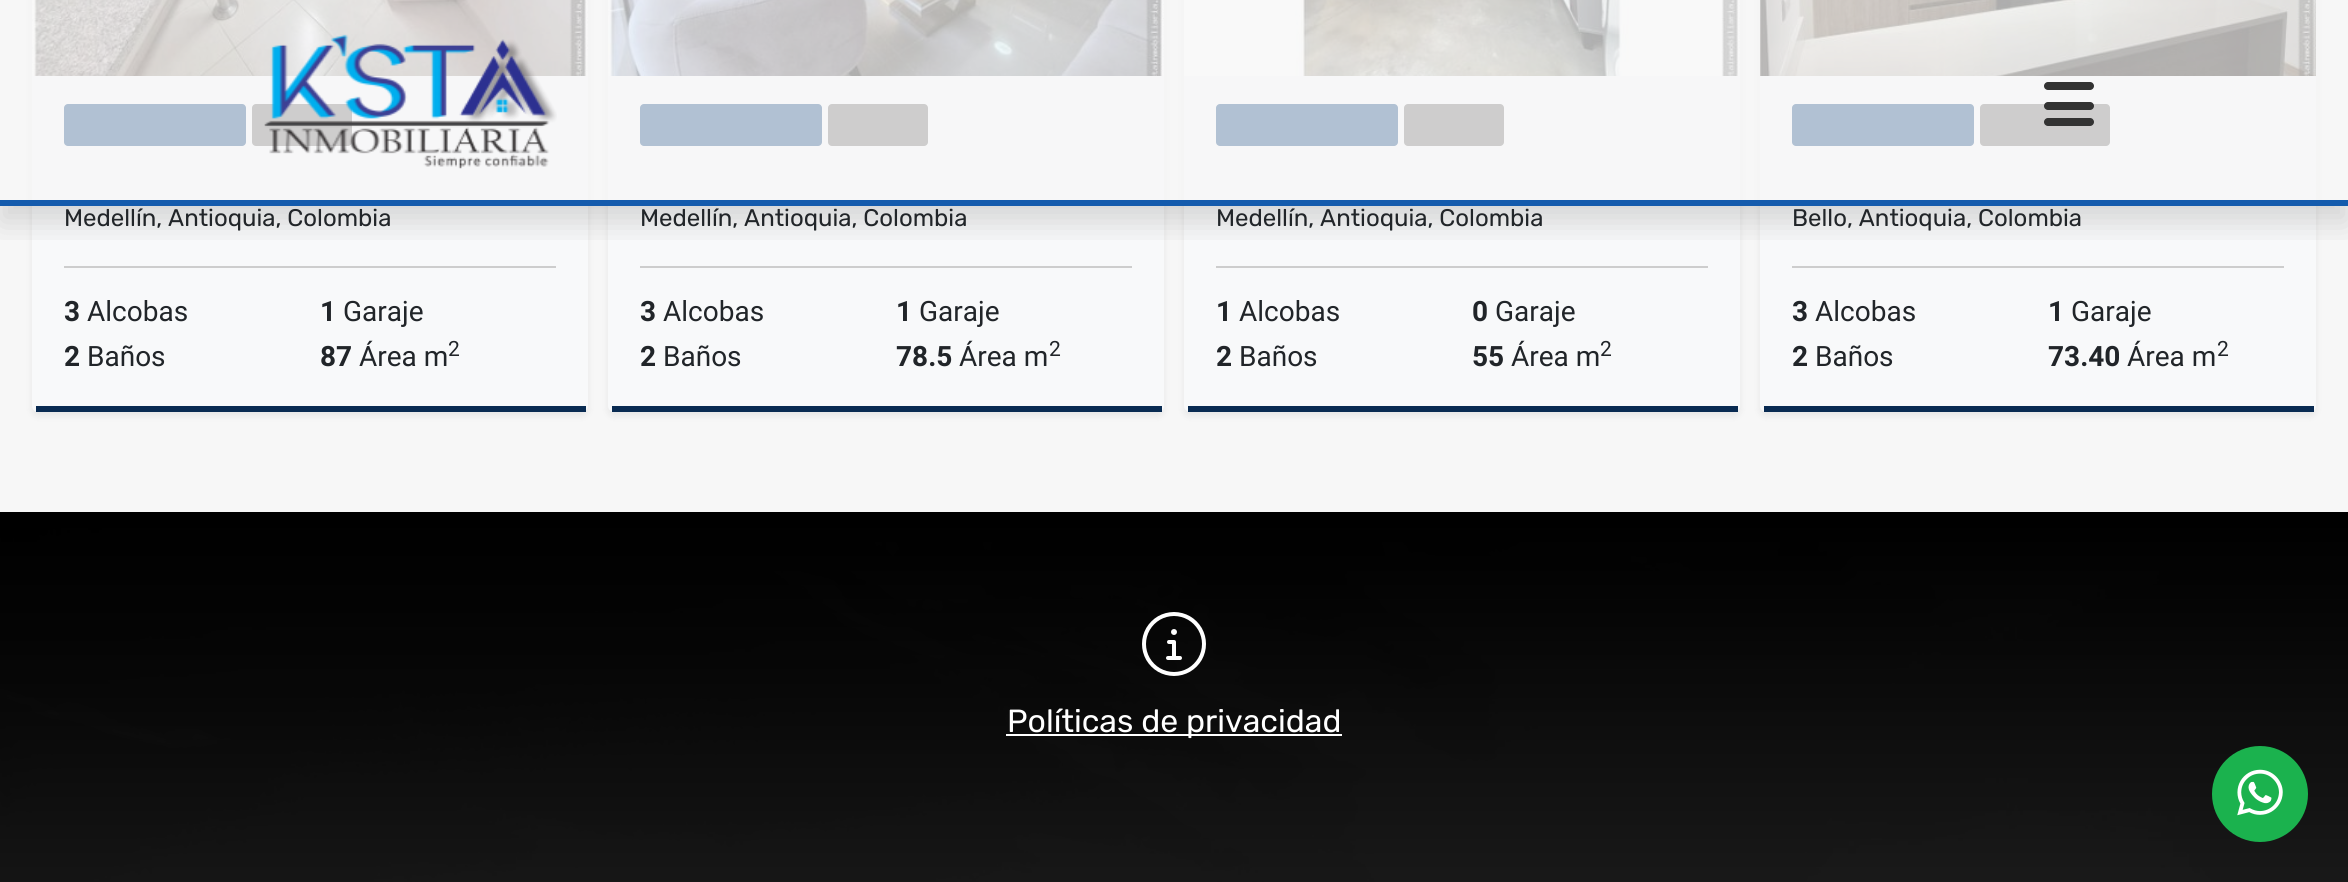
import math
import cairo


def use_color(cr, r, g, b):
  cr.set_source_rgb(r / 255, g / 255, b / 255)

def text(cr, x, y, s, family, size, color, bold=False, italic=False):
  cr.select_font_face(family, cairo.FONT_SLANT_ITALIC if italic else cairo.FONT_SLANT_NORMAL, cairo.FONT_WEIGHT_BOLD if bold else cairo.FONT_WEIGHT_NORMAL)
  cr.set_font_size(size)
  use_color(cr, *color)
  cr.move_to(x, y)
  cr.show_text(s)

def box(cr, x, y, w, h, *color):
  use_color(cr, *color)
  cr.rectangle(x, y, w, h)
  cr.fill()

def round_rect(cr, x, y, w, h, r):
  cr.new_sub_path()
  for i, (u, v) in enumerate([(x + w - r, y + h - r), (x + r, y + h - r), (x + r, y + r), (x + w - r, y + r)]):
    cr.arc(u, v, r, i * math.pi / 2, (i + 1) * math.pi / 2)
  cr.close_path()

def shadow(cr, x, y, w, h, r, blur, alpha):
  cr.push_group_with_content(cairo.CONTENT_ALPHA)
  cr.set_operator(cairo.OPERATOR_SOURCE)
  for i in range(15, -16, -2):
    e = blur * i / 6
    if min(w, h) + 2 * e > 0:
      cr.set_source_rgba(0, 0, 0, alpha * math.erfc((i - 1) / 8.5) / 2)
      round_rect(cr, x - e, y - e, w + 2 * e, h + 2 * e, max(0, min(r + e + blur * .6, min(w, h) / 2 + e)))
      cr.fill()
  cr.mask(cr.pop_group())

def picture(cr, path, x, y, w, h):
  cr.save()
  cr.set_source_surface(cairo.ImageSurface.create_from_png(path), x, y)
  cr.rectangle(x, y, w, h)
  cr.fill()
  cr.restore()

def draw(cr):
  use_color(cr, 247, 247, 247)
  cr.paint()
  use_color(cr, 0, 0, 0)
  shadow(cr, 32, -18, 556, 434, 6, 4, 0.07)
  use_color(cr, 248, 249, 250)
  round_rect(cr, 32, -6, 556, 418, 6)
  cr.fill()
  picture(cr, "img_02.png", 32, 0, 556, 76)
  use_color(cr, 15, 67, 127)
  round_rect(cr, 64, 104, 182, 42, 4)
  cr.fill()
  use_color(cr, 111, 109, 109)
  round_rect(cr, 252, 104, 100, 42, 4)
  cr.fill()
  box(cr, 64, 266, 492, 2, 205, 205, 205)
  use_color(cr, 0, 0, 0)
  shadow(cr, 608, -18, 556, 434, 6, 4, 0.07)
  use_color(cr, 248, 249, 250)
  round_rect(cr, 608, -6, 556, 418, 6)
  cr.fill()
  picture(cr, "img_03.png", 608, 0, 556, 76)
  use_color(cr, 15, 67, 127)
  round_rect(cr, 640, 104, 182, 42, 4)
  cr.fill()
  use_color(cr, 111, 109, 109)
  round_rect(cr, 828, 104, 100, 42, 4)
  cr.fill()
  box(cr, 640, 266, 492, 2, 205, 205, 205)
  use_color(cr, 0, 0, 0)
  shadow(cr, 1184, -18, 556, 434, 6, 4, 0.07)
  use_color(cr, 248, 249, 250)
  round_rect(cr, 1184, -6, 556, 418, 6)
  cr.fill()
  picture(cr, "img_04.png", 1184, 0, 556, 76)
  use_color(cr, 15, 67, 127)
  round_rect(cr, 1216, 104, 182, 42, 4)
  cr.fill()
  use_color(cr, 111, 109, 109)
  round_rect(cr, 1404, 104, 100, 42, 4)
  cr.fill()
  box(cr, 1216, 266, 492, 2, 205, 205, 205)
  use_color(cr, 0, 0, 0)
  shadow(cr, 1760, -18, 556, 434, 6, 4, 0.07)
  use_color(cr, 248, 249, 250)
  round_rect(cr, 1760, -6, 556, 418, 6)
  cr.fill()
  picture(cr, "img_05.png", 1760, 0, 556, 76)
  use_color(cr, 15, 67, 127)
  round_rect(cr, 1792, 104, 182, 42, 4)
  cr.fill()
  use_color(cr, 111, 109, 109)
  round_rect(cr, 1980, 104, 130, 42, 4)
  cr.fill()
  box(cr, 1792, 266, 492, 2, 205, 205, 205)
  cr.save()
  cr.rectangle(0, 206, 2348, 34)
  cr.clip()
  use_color(cr, 0, 0, 0)
  shadow(cr, 0, 16, 2348, 206, 0, 16, 0.15)
  cr.restore()
  cr.set_source_rgba(0.969, 0.969, 0.969, 0.7)
  cr.rectangle(29, 0, 2290, 200)
  cr.fill()
  box(cr, 0, 200, 2348, 6, 20, 91, 173)
  picture(cr, "img_01.png", 264, 34, 293, 135)
  use_color(cr, 51, 51, 51)
  round_rect(cr, 2044, 82, 50, 8, 4)
  cr.fill()
  round_rect(cr, 2044, 102, 50, 8, 4)
  cr.fill()
  round_rect(cr, 2044, 118, 50, 8, 4)
  cr.fill()
  box(cr, 36, 406, 550, 6, 9, 43, 82)
  box(cr, 612, 406, 550, 6, 9, 43, 82)
  box(cr, 1188, 406, 550, 6, 9, 43, 82)
  box(cr, 1764, 406, 550, 6, 9, 43, 82)
  picture(cr, "img_06.png", 0, 512, 2348, 370)
  picture(cr, "img_07.png", 1142, 612, 64, 64)
  box(cr, 1006, 734, 336, 2, 255, 255, 255)
  use_color(cr, 27, 178, 78)
  cr.arc(2260, 794, 48, 0, 2 * math.pi)
  cr.fill()
  picture(cr, "img_08.png", 2237, 769, 46, 47)
  text(cr, 64, 226, "Medellín, Antioquia, Colombia", "Rubik", 24, (33, 37, 41))
  text(cr, 64, 321, "3", "Roboto", 28, (33, 37, 41), bold=True)
  text(cr, 87, 321, "Alcobas", "Roboto", 28, (33, 37, 41))
  text(cr, 320, 321, "1", "Roboto", 28, (33, 37, 41), bold=True)
  text(cr, 343, 321, "Garaje", "Roboto", 28, (33, 37, 41))
  text(cr, 64, 366, "2", "Roboto", 28, (33, 37, 41), bold=True)
  text(cr, 87, 366, "Baños", "Roboto", 28, (33, 37, 41))
  text(cr, 320, 366, "87", "Roboto", 28, (33, 37, 41), bold=True)
  text(cr, 359, 366, "Área m", "Roboto", 28, (33, 37, 41))
  text(cr, 448, 356, "2", "Roboto", 21, (33, 37, 41))
  text(cr, 640, 226, "Medellín, Antioquia, Colombia", "Rubik", 24, (33, 37, 41))
  text(cr, 640, 321, "3", "Roboto", 28, (33, 37, 41), bold=True)
  text(cr, 663, 321, "Alcobas", "Roboto", 28, (33, 37, 41))
  text(cr, 896, 321, "1", "Roboto", 28, (33, 37, 41), bold=True)
  text(cr, 919, 321, "Garaje", "Roboto", 28, (33, 37, 41))
  text(cr, 640, 366, "2", "Roboto", 28, (33, 37, 41), bold=True)
  text(cr, 663, 366, "Baños", "Roboto", 28, (33, 37, 41))
  text(cr, 896, 366, "78.5", "Roboto", 28, (33, 37, 41), bold=True)
  text(cr, 959, 366, "Área m", "Roboto", 28, (33, 37, 41))
  text(cr, 1049, 356, "2", "Roboto", 21, (33, 37, 41))
  text(cr, 1216, 226, "Medellín, Antioquia, Colombia", "Rubik", 24, (33, 37, 41))
  text(cr, 1216, 321, "1", "Roboto", 28, (33, 37, 41), bold=True)
  text(cr, 1239, 321, "Alcobas", "Roboto", 28, (33, 37, 41))
  text(cr, 1472, 321, "0", "Roboto", 28, (33, 37, 41), bold=True)
  text(cr, 1495, 321, "Garaje", "Roboto", 28, (33, 37, 41))
  text(cr, 1216, 366, "2", "Roboto", 28, (33, 37, 41), bold=True)
  text(cr, 1239, 366, "Baños", "Roboto", 28, (33, 37, 41))
  text(cr, 1472, 366, "55", "Roboto", 28, (33, 37, 41), bold=True)
  text(cr, 1511, 366, "Área m", "Roboto", 28, (33, 37, 41))
  text(cr, 1600, 356, "2", "Roboto", 21, (33, 37, 41))
  text(cr, 1792, 226, "Bello, Antioquia, Colombia", "Rubik", 24, (33, 37, 41))
  text(cr, 1792, 321, "3", "Roboto", 28, (33, 37, 41), bold=True)
  text(cr, 1815, 321, "Alcobas", "Roboto", 28, (33, 37, 41))
  text(cr, 2048, 321, "1", "Roboto", 28, (33, 37, 41), bold=True)
  text(cr, 2071, 321, "Garaje", "Roboto", 28, (33, 37, 41))
  text(cr, 1792, 366, "2", "Roboto", 28, (33, 37, 41), bold=True)
  text(cr, 1815, 366, "Baños", "Roboto", 28, (33, 37, 41))
  text(cr, 2048, 366, "73.40", "Roboto", 28, (33, 37, 41), bold=True)
  text(cr, 2127, 366, "Área m", "Roboto", 28, (33, 37, 41))
  text(cr, 2217, 356, "2", "Roboto", 21, (33, 37, 41))
  text(cr, 1007, 732, "Políticas de privacidad", "Rubik", 32, (255, 255, 255))


surface = cairo.ImageSurface(cairo.FORMAT_RGB24, 2348, 882)
cr = cairo.Context(surface)
options = cairo.FontOptions()
options.set_hint_metrics(cairo.HINT_METRICS_OFF)
options.set_hint_style(cairo.HINT_STYLE_NONE)
cr.set_font_options(options)
cr.set_miter_limit(4)
draw(cr)
surface.write_to_png("out.png")
